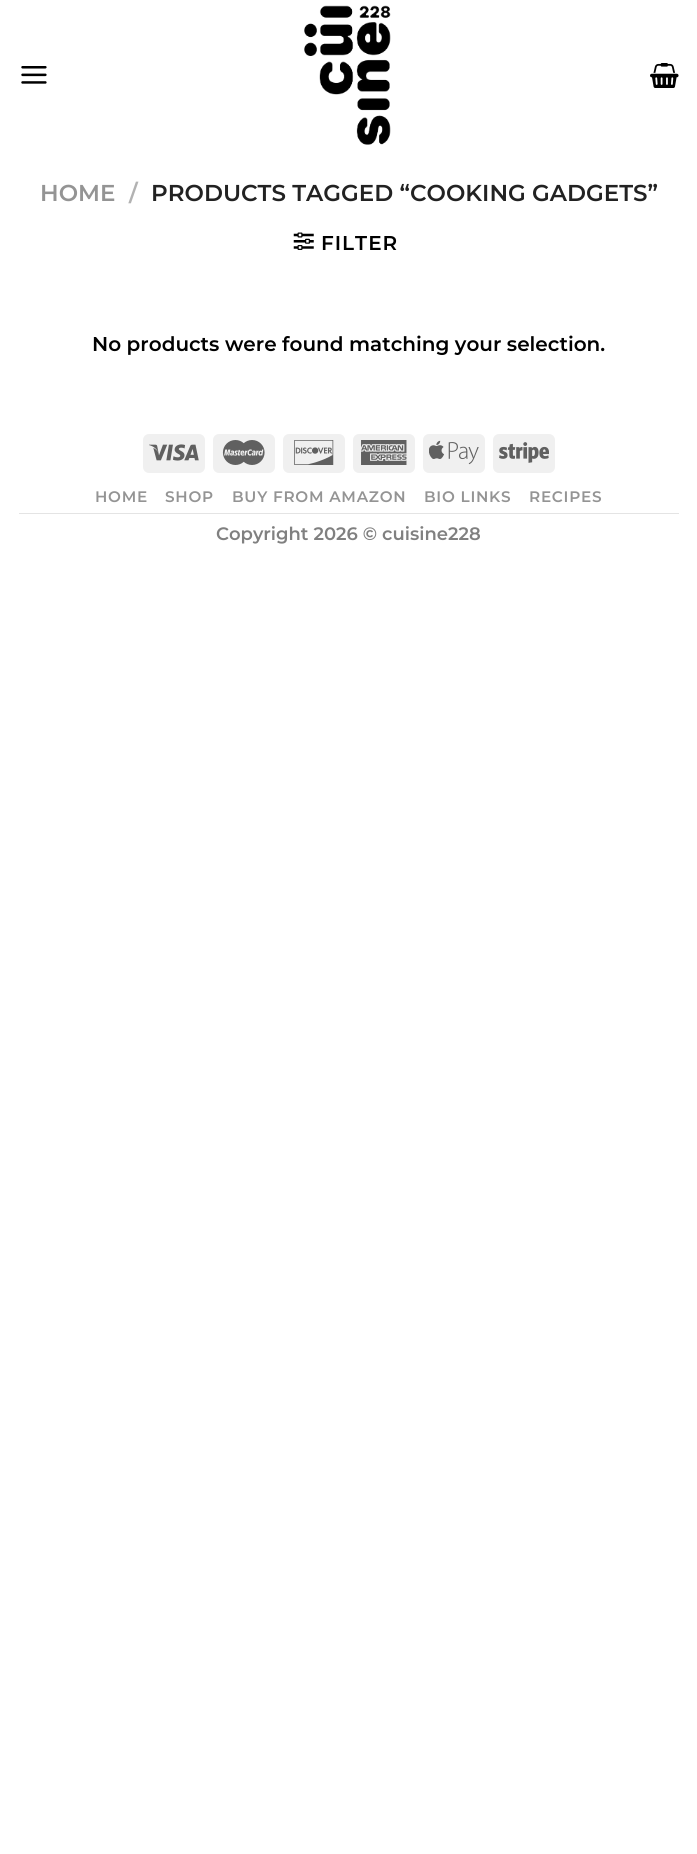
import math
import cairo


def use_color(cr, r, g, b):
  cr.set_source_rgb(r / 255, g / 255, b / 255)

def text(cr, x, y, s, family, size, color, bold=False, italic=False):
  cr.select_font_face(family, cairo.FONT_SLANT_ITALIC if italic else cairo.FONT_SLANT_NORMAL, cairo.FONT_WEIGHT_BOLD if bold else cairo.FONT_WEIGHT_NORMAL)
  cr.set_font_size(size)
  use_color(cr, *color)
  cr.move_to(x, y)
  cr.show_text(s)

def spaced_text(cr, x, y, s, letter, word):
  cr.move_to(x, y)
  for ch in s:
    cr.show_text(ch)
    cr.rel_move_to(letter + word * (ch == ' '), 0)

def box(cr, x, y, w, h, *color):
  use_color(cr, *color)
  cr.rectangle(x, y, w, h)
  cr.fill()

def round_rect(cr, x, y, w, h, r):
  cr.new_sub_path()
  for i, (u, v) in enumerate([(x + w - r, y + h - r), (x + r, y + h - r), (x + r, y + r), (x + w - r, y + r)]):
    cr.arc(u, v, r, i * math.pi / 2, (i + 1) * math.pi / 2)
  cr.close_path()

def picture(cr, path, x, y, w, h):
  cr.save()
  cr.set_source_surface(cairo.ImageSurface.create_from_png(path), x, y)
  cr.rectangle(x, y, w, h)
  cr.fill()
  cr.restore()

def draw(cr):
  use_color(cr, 255, 255, 255)
  cr.paint()
  picture(cr, "img_01.png", 21, 66, 26, 18)
  picture(cr, "img_02.png", 304, 5, 87, 140)
  picture(cr, "img_03.png", 650, 63, 29, 25)
  picture(cr, "img_04.png", 293, 232, 21, 18)
  use_color(cr, 240, 240, 240)
  round_rect(cr, 143, 434, 62, 39, 6)
  cr.fill()
  picture(cr, "img_05.png", 149, 444, 50, 17)
  round_rect(cr, 213, 434, 62, 39, 6)
  cr.fill()
  picture(cr, "img_06.png", 222, 440, 43, 25)
  round_rect(cr, 283, 434, 62, 39, 6)
  cr.fill()
  picture(cr, "img_07.png", 294, 440, 40, 25)
  round_rect(cr, 353, 434, 62, 39, 6)
  cr.fill()
  picture(cr, "img_08.png", 361, 440, 46, 25)
  round_rect(cr, 423, 434, 62, 39, 6)
  cr.fill()
  picture(cr, "img_09.png", 429, 440, 50, 25)
  round_rect(cr, 493, 434, 62, 39, 6)
  cr.fill()
  picture(cr, "img_10.png", 499, 442, 50, 21)
  box(cr, 19, 513, 660, 1, 228, 228, 228)
  text(cr, 40, 201, "HOME", "Montserrat SemiBold", 23, (148, 148, 148))
  text(cr, 129, 201, "/", "Montserrat SemiBold", 23, (178, 178, 178))
  text(cr, 151, 201, "PRODUCTS TAGGED “COOKING GADGETS”", "Montserrat SemiBold", 23, (34, 34, 34))
  cr.set_font_size(20)
  use_color(cr, 0, 0, 0)
  spaced_text(cr, 321, 250, "FILTER", 1, 0)
  text(cr, 92, 351, "No products were found matching your selection.", "Montserrat SemiBold", 20, (0, 0, 0))
  cr.set_font_size(15.25)
  use_color(cr, 148, 148, 148)
  spaced_text(cr, 95, 502, "HOME", 0.75, 0)
  spaced_text(cr, 165, 502, "SHOP", 0.75, 0)
  spaced_text(cr, 232, 502, "BUY FROM AMAZON", 0.75, 0)
  spaced_text(cr, 424, 502, "BIO LINKS", 0.75, 0)
  spaced_text(cr, 529, 502, "RECIPES", 0.75, 0)
  text(cr, 216, 540, "Copyright 2026 © cuisine228", "Montserrat SemiBold", 18, (128, 128, 128))


surface = cairo.ImageSurface(cairo.FORMAT_RGB24, 697, 1854)
cr = cairo.Context(surface)
options = cairo.FontOptions()
options.set_hint_metrics(cairo.HINT_METRICS_OFF)
options.set_hint_style(cairo.HINT_STYLE_NONE)
cr.set_font_options(options)
cr.set_miter_limit(4)
draw(cr)
surface.write_to_png("out.png")
